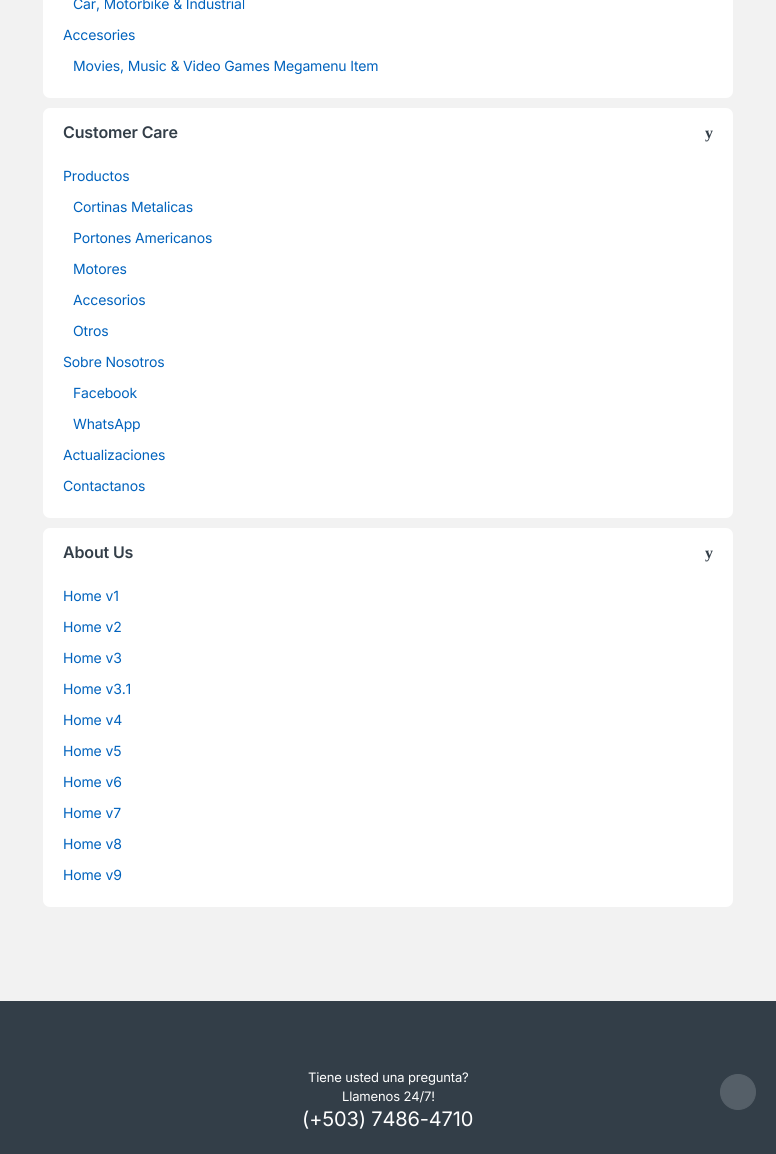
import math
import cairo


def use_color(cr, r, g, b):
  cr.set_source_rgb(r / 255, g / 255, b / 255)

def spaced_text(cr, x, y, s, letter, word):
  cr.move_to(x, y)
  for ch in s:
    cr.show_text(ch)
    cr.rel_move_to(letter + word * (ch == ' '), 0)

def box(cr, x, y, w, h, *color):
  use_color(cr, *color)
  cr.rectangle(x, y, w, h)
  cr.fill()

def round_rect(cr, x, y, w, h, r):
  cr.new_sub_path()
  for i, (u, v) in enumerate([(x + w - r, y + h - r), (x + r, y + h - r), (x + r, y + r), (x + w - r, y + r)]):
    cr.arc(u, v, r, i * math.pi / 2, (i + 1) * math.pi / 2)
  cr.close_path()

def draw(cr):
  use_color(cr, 242, 242, 242)
  cr.paint()
  use_color(cr, 255, 255, 255)
  round_rect(cr, 43, -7, 690, 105, 7)
  cr.fill()
  round_rect(cr, 43, 108, 690, 410, 7)
  cr.fill()
  round_rect(cr, 43, 528, 690, 379, 7)
  cr.fill()
  box(cr, 0, 1001, 776, 153, 51, 62, 72)
  use_color(cr, 85, 95, 104)
  cr.arc(738, 1092, 17.5, 0, 2 * math.pi)
  cr.fill_preserve()
  cr.set_line_width(1)
  cr.stroke()
  cr.select_font_face("Inter")
  cr.set_font_size(14)
  use_color(cr, 0, 98, 189)
  spaced_text(cr, 73, 9, "Car, Motorbike & Industrial", -0.15, 0)
  spaced_text(cr, 63, 40, "Accesories", -0.15, 0)
  spaced_text(cr, 73, 71, "Movies, Music & Video Games Megamenu Item", -0.15, 0)
  cr.select_font_face("Inter SemiBold")
  cr.set_font_size(16)
  use_color(cr, 51, 62, 72)
  spaced_text(cr, 63, 138, "Customer Care", -0.15, 0)
  cr.select_font_face("Liberation Serif", cairo.FONT_SLANT_NORMAL, cairo.FONT_WEIGHT_BOLD)
  spaced_text(cr, 705, 138, "y", -0.15, 0)
  cr.select_font_face("Inter")
  cr.set_font_size(14)
  use_color(cr, 0, 98, 189)
  spaced_text(cr, 63, 181, "Productos", -0.15, 0)
  spaced_text(cr, 73, 212, "Cortinas Metalicas", -0.15, 0)
  spaced_text(cr, 73, 243, "Portones Americanos", -0.15, 0)
  spaced_text(cr, 73, 274, "Motores", -0.15, 0)
  spaced_text(cr, 73, 305, "Accesorios", -0.15, 0)
  spaced_text(cr, 73, 336, "Otros", -0.15, 0)
  spaced_text(cr, 63, 367, "Sobre Nosotros", -0.15, 0)
  spaced_text(cr, 73, 398, "Facebook", -0.15, 0)
  spaced_text(cr, 73, 429, "WhatsApp", -0.15, 0)
  spaced_text(cr, 63, 460, "Actualizaciones", -0.15, 0)
  spaced_text(cr, 63, 491, "Contactanos", -0.15, 0)
  cr.select_font_face("Inter SemiBold")
  cr.set_font_size(16)
  use_color(cr, 51, 62, 72)
  spaced_text(cr, 63, 558, "About Us", -0.15, 0)
  cr.select_font_face("Liberation Serif", cairo.FONT_SLANT_NORMAL, cairo.FONT_WEIGHT_BOLD)
  spaced_text(cr, 705, 558, "y", -0.15, 0)
  cr.select_font_face("Inter")
  cr.set_font_size(14)
  use_color(cr, 0, 98, 189)
  spaced_text(cr, 63, 601, "Home v1", -0.15, 0)
  spaced_text(cr, 63, 632, "Home v2", -0.15, 0)
  spaced_text(cr, 63, 663, "Home v3", -0.15, 0)
  spaced_text(cr, 63, 694, "Home v3.1", -0.15, 0)
  spaced_text(cr, 63, 725, "Home v4", -0.15, 0)
  spaced_text(cr, 63, 756, "Home v5", -0.15, 0)
  spaced_text(cr, 63, 787, "Home v6", -0.15, 0)
  spaced_text(cr, 63, 818, "Home v7", -0.15, 0)
  spaced_text(cr, 63, 849, "Home v8", -0.15, 0)
  spaced_text(cr, 63, 880, "Home v9", -0.15, 0)
  cr.set_font_size(13)
  use_color(cr, 255, 255, 255)
  spaced_text(cr, 308, 1082, "Tiene usted una pregunta?", -0.15, 0)
  spaced_text(cr, 342, 1101, "Llamenos 24/7!", -0.15, 0)
  cr.set_font_size(20)
  spaced_text(cr, 302, 1126, "(+503) 7486-4710", -0.15, 0)


surface = cairo.ImageSurface(cairo.FORMAT_RGB24, 776, 1154)
cr = cairo.Context(surface)
options = cairo.FontOptions()
options.set_hint_metrics(cairo.HINT_METRICS_OFF)
options.set_hint_style(cairo.HINT_STYLE_NONE)
cr.set_font_options(options)
cr.set_miter_limit(4)
draw(cr)
surface.write_to_png("out.png")
